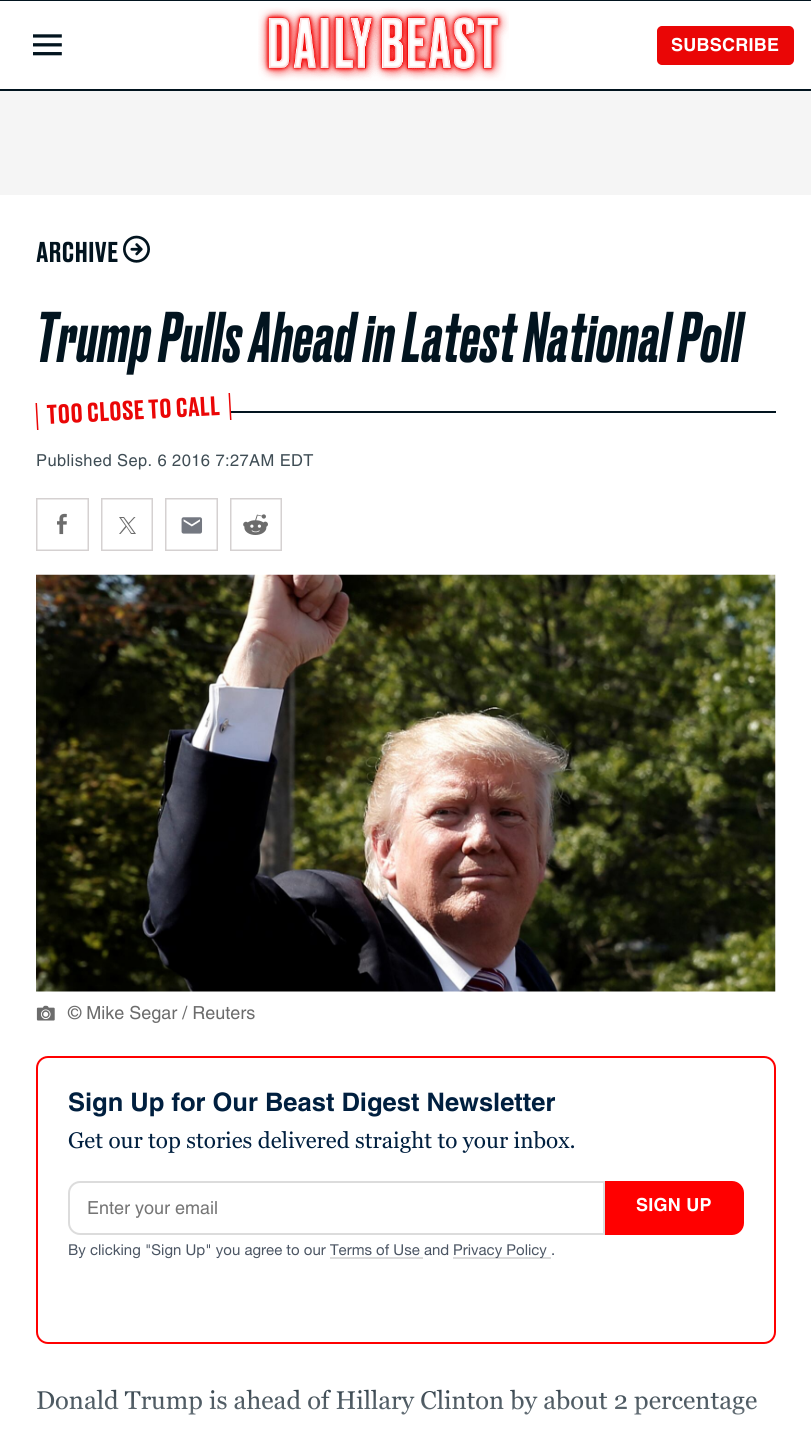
import math
import cairo


def use_color(cr, r, g, b):
  cr.set_source_rgb(r / 255, g / 255, b / 255)

def text(cr, x, y, s, family, size, color, bold=False, italic=False):
  cr.select_font_face(family, cairo.FONT_SLANT_ITALIC if italic else cairo.FONT_SLANT_NORMAL, cairo.FONT_WEIGHT_BOLD if bold else cairo.FONT_WEIGHT_NORMAL)
  cr.set_font_size(size)
  use_color(cr, *color)
  cr.move_to(x, y)
  cr.show_text(s)

def spaced_text(cr, x, y, s, letter, word):
  cr.move_to(x, y)
  for ch in s:
    cr.show_text(ch)
    cr.rel_move_to(letter + word * (ch == ' '), 0)

def box(cr, x, y, w, h, *color):
  use_color(cr, *color)
  cr.rectangle(x, y, w, h)
  cr.fill()

def round_rect(cr, x, y, w, h, r):
  cr.new_sub_path()
  for i, (u, v) in enumerate([(x + w - r, y + h - r), (x + r, y + h - r), (x + r, y + r), (x + w - r, y + r)]):
    cr.arc(u, v, r, i * math.pi / 2, (i + 1) * math.pi / 2)
  cr.close_path()

def picture(cr, path, x, y, w, h):
  cr.save()
  cr.set_source_surface(cairo.ImageSurface.create_from_png(path), x, y)
  cr.rectangle(x, y, w, h)
  cr.fill()
  cr.restore()

def draw(cr):
  use_color(cr, 255, 255, 255)
  cr.paint()
  box(cr, 0, 0, 811, 1, 2, 20, 31)
  box(cr, 0, 89, 811, 2, 2, 20, 31)
  picture(cr, "img_01.png", 33, 34, 29, 22)
  picture(cr, "img_02.png", 258, 7, 251, 74)
  use_color(cr, 234, 6, 6)
  round_rect(cr, 658, 27, 135, 37, 4)
  cr.fill_preserve()
  cr.stroke()
  box(cr, 0, 91, 811, 104, 245, 245, 245)
  picture(cr, "img_03.png", 123, 235, 27, 28)
  box(cr, 231, 411, 545, 2, 2, 20, 31)
  use_color(cr, 234, 6, 6)
  cr.new_path()
  cr.move_to(228.5, 393)
  cr.line_to(230, 393)
  cr.line_to(231.5, 420)
  cr.line_to(230, 420)
  cr.close_path()
  cr.fill()
  cr.new_path()
  cr.move_to(35.5, 403)
  cr.line_to(37, 403)
  cr.line_to(38.5, 430)
  cr.line_to(37, 430)
  cr.close_path()
  cr.fill()
  picture(cr, "img_04.png", 36, 498, 53, 53)
  cr.rectangle(101.75, 498.75, 50.5, 51.5)
  use_color(cr, 213, 209, 209)
  cr.set_line_width(1.5)
  cr.stroke()
  use_color(cr, 108, 108, 108)
  cr.new_path()
  cr.move_to(129, 524)
  cr.line_to(135.5, 517)
  cr.line_to(134, 517)
  cr.line_to(128.5, 523)
  cr.line_to(124, 517)
  cr.line_to(119, 517)
  cr.line_to(125.5, 526)
  cr.line_to(119, 534)
  cr.line_to(120.5, 534)
  cr.line_to(126.5, 527)
  cr.line_to(131, 534)
  cr.line_to(136, 534)
  cr.move_to(121, 518)
  cr.line_to(123.5, 518)
  cr.line_to(134, 533)
  cr.line_to(131.5, 533)
  cr.fill()
  picture(cr, "img_05.png", 165, 498, 53, 53)
  picture(cr, "img_06.png", 230, 498, 52, 53)
  picture(cr, "img_07.png", 36, 574, 740, 418)
  picture(cr, "img_08.png", 36, 1005, 19, 16)
  round_rect(cr, 37, 1057, 738, 286, 11)
  use_color(cr, 255, 0, 0)
  cr.set_line_width(2)
  cr.stroke()
  cr.new_path()
  cr.move_to(80, 1182)
  cr.line_to(604, 1182)
  cr.line_to(604, 1234)
  cr.line_to(80, 1234)
  cr.curve_to(74, 1234, 69, 1229, 69, 1223)
  cr.line_to(69, 1193)
  cr.curve_to(69, 1187, 74, 1182, 80, 1182)
  cr.close_path()
  use_color(cr, 220, 220, 220)
  cr.stroke()
  use_color(cr, 255, 0, 0)
  cr.new_path()
  cr.move_to(606, 1182)
  cr.line_to(732, 1182)
  cr.curve_to(738, 1182, 743, 1187, 743, 1193)
  cr.line_to(743, 1223)
  cr.curve_to(743, 1229, 738, 1234, 732, 1234)
  cr.line_to(606, 1234)
  cr.close_path()
  cr.fill_preserve()
  cr.stroke()
  box(cr, 453, 1257, 98, 2, 220, 220, 220)
  cr.select_font_face("Helvetica", cairo.FONT_SLANT_NORMAL, cairo.FONT_WEIGHT_BOLD)
  cr.set_font_size(18)
  use_color(cr, 255, 255, 255)
  spaced_text(cr, 671, 51, "SUBSCRIBE", 0.25, 0)
  text(cr, 36, 262, "ARCHIVE", "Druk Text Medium", 27, (2, 20, 31))
  cr.select_font_face("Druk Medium", cairo.FONT_SLANT_ITALIC)
  cr.set_font_size(67.5)
  spaced_text(cr, 36, 362, "Trump Pulls Ahead in Latest National Poll", 0.75, 0)
  cr.save()
  cr.translate(47, 424)
  cr.rotate(-3 * math.pi / 180)
  text(cr, 0, 0, "TOO CLOSE TO CALL", "Druk Text Medium", 25.5, (234, 6, 6))
  cr.restore()
  cr.select_font_face("Helvetica")
  cr.set_font_size(16.5)
  use_color(cr, 63, 77, 85)
  spaced_text(cr, 36, 466, "Published Sep. 6 2016 7:27AM EDT", 0.4, 0)
  text(cr, 68, 1019, "© Mike Segar / Reuters", "Helvetica", 18, (108, 108, 108))
  text(cr, 68, 1111, "Sign Up for Our Beast Digest Newsletter", "Helvetica", 25.5, (0, 31, 63), bold=True)
  text(cr, 68, 1148, "Get our top stories delivered straight to your inbox.", "Georgia", 22.5, (0, 31, 63))
  text(cr, 87, 1214, "Enter your email", "Helvetica", 18, (117, 117, 117))
  cr.select_font_face("Helvetica", cairo.FONT_SLANT_NORMAL, cairo.FONT_WEIGHT_BOLD)
  use_color(cr, 255, 255, 255)
  spaced_text(cr, 636, 1211, "SIGN UP", 0.25, 0)
  text(cr, 68, 1255, "By clicking \"Sign Up\" you agree to our Terms of Use and", "Helvetica Neue", 15, (75, 85, 99))
  text(cr, 453, 1255, "Privacy Policy .", "Helvetica Neue", 15, (75, 85, 99))
  box(cr, 330, 1257, 93, 2, 220, 220, 220)
  text(cr, 36, 1409, "Donald Trump is ahead of Hillary Clinton by about 2 percentage", "Georgia", 25.5, (40, 55, 65))
  gradient = cairo.LinearGradient(406, 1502, 406, 1380)
  gradient.add_color_stop_rgba(0, 1, 1, 1, 1)
  gradient.add_color_stop_rgba(1, 1, 1, 1, 0)
  cr.set_source(gradient)
  cr.rectangle(37, 1389, 720, 26)
  cr.fill()


surface = cairo.ImageSurface(cairo.FORMAT_RGB24, 811, 1439)
cr = cairo.Context(surface)
options = cairo.FontOptions()
options.set_hint_metrics(cairo.HINT_METRICS_OFF)
options.set_hint_style(cairo.HINT_STYLE_NONE)
cr.set_font_options(options)
cr.set_miter_limit(4)
draw(cr)
surface.write_to_png("out.png")
